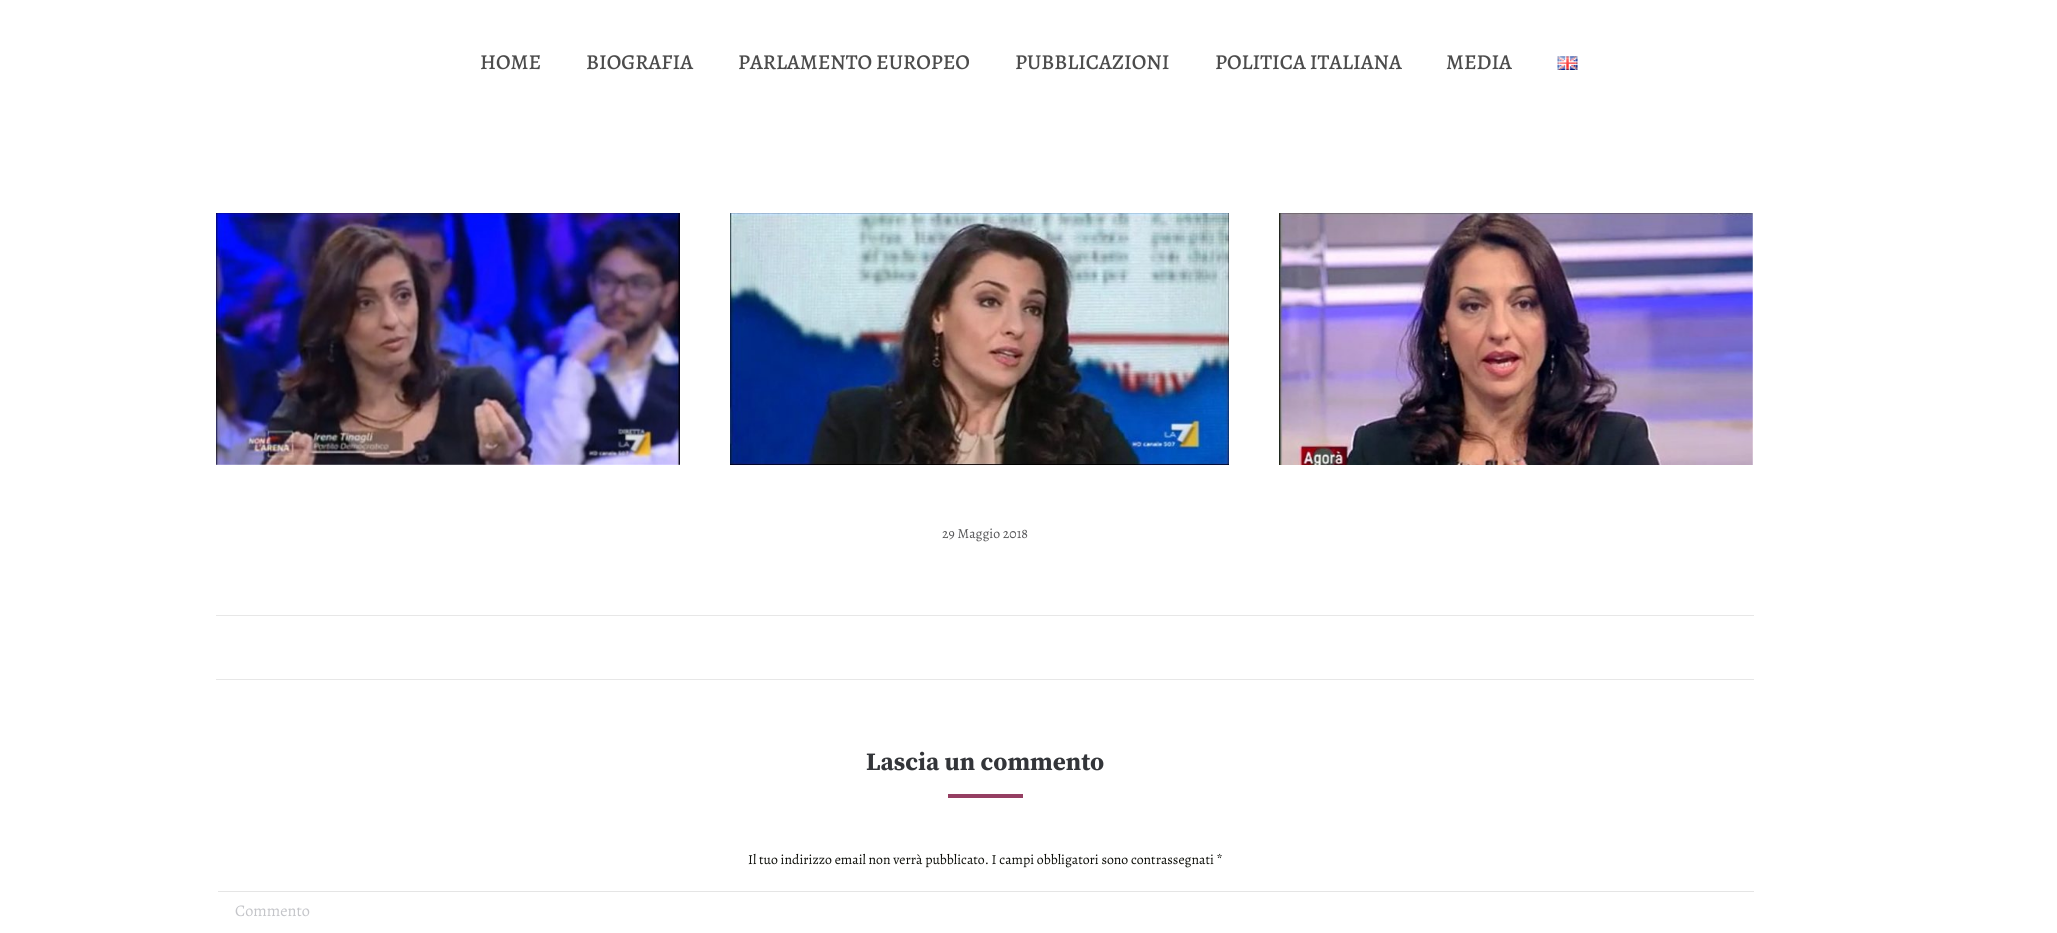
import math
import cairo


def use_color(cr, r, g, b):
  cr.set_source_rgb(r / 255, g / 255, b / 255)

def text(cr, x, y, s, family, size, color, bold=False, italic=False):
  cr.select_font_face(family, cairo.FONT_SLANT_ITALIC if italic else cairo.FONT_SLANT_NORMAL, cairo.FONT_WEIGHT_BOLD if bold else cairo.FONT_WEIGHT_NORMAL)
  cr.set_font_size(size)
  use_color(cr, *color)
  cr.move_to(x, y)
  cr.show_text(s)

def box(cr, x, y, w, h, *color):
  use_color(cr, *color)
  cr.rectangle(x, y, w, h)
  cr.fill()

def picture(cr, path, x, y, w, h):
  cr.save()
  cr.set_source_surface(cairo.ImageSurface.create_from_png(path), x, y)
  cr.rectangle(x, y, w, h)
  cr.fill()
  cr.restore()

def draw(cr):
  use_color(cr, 255, 255, 255)
  cr.paint()
  picture(cr, "img_01.png", 1557, 56, 21, 14)
  picture(cr, "img_02.png", 216, 213, 464, 252)
  picture(cr, "img_03.png", 730, 213, 499, 252)
  picture(cr, "img_04.png", 1279, 213, 474, 252)
  box(cr, 216, 615, 1538, 1, 231, 231, 231)
  box(cr, 216, 679, 1538, 1, 231, 231, 231)
  box(cr, 948, 794, 75, 4, 149, 62, 98)
  box(cr, 218, 891, 1536, 1, 229, 229, 229)
  text(cr, 480, 69, "HOME", "Alegreya Medium", 21.25, (76, 76, 76))
  text(cr, 586, 69, "BIOGRAFIA", "Alegreya Medium", 21.25, (76, 76, 76))
  text(cr, 738, 69, "PARLAMENTO EUROPEO", "Alegreya Medium", 21.25, (76, 76, 76))
  text(cr, 1015, 69, "PUBBLICAZIONI", "Alegreya Medium", 21.25, (76, 76, 76))
  text(cr, 1215, 69, "POLITICA ITALIANA", "Alegreya Medium", 21.25, (76, 76, 76))
  text(cr, 1446, 69, "MEDIA", "Alegreya Medium", 21.25, (76, 76, 76))
  text(cr, 942, 538, "29 Maggio 2018", "Alegreya", 13.75, (84, 84, 86))
  text(cr, 866, 770, "Lascia un commento", "Source Serif Pro", 25, (51, 53, 57), bold=True)
  text(cr, 748, 864, "Il tuo indirizzo email non verrà pubblicato. I campi obbligatori sono contrassegnati *", "Alegreya", 13.75, (11, 12, 7))
  text(cr, 235, 916, "Commento", "Alegreya", 16.25, (196, 197, 201))


surface = cairo.ImageSurface(cairo.FORMAT_RGB24, 2057, 933)
cr = cairo.Context(surface)
options = cairo.FontOptions()
options.set_hint_metrics(cairo.HINT_METRICS_OFF)
options.set_hint_style(cairo.HINT_STYLE_NONE)
cr.set_font_options(options)
cr.set_miter_limit(4)
draw(cr)
surface.write_to_png("out.png")
